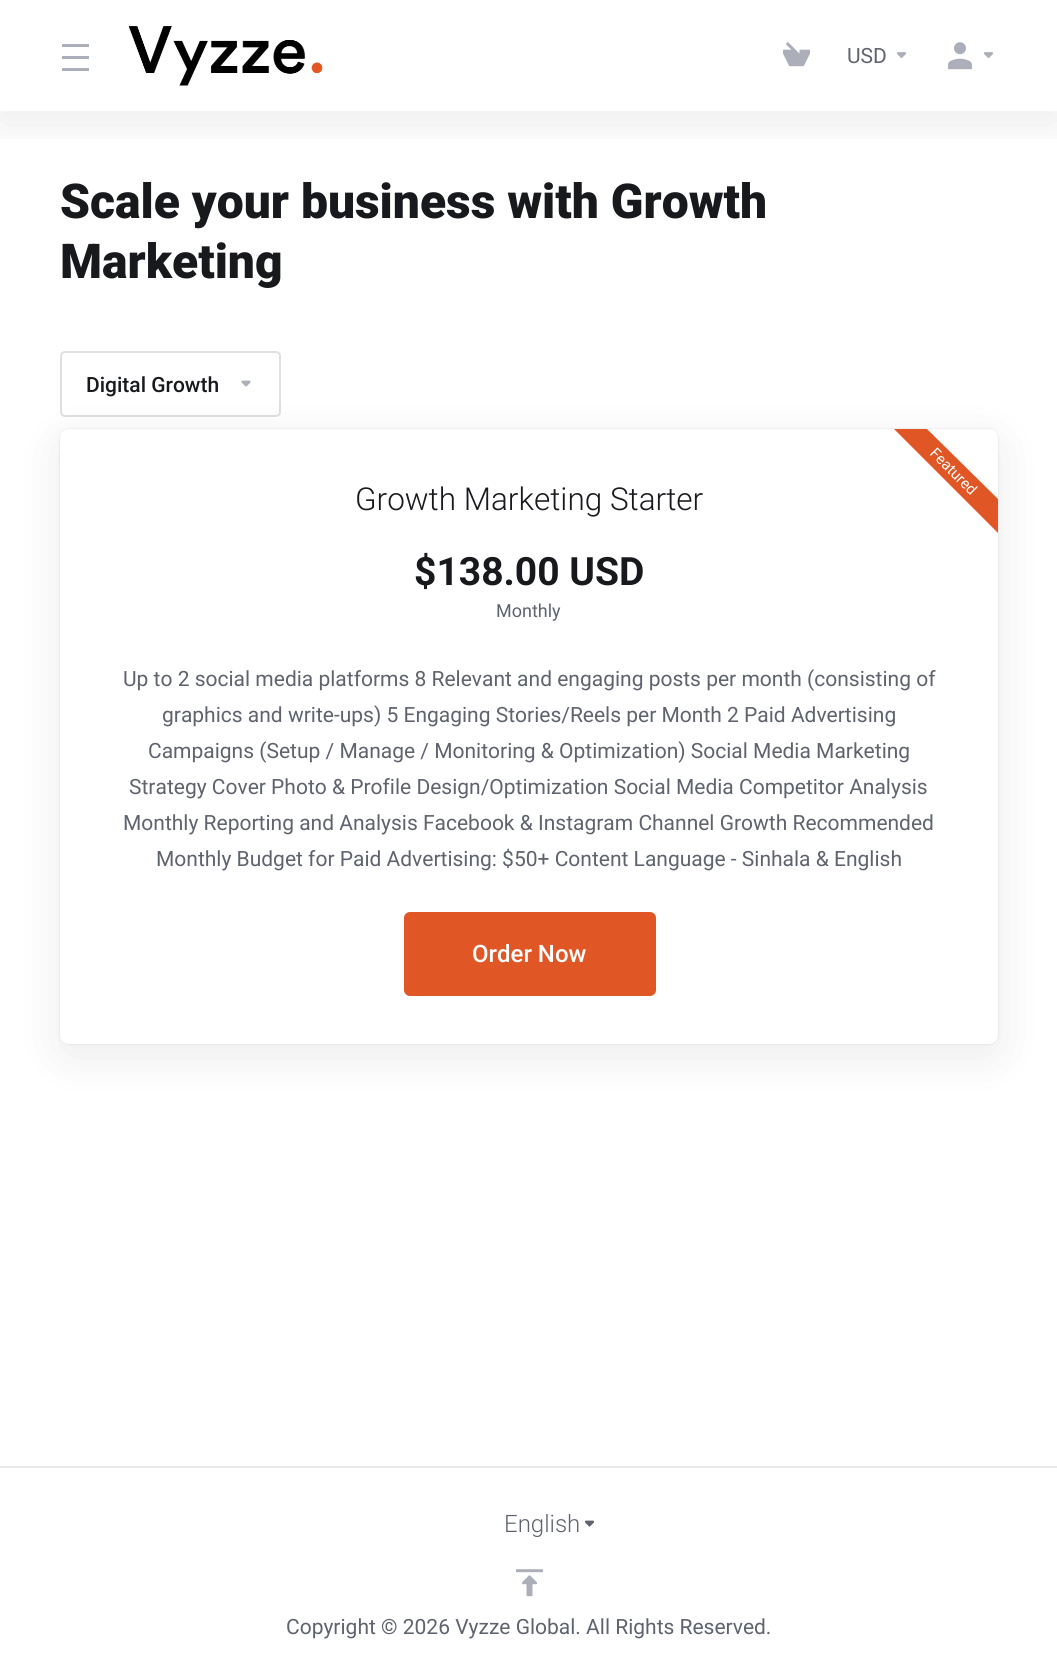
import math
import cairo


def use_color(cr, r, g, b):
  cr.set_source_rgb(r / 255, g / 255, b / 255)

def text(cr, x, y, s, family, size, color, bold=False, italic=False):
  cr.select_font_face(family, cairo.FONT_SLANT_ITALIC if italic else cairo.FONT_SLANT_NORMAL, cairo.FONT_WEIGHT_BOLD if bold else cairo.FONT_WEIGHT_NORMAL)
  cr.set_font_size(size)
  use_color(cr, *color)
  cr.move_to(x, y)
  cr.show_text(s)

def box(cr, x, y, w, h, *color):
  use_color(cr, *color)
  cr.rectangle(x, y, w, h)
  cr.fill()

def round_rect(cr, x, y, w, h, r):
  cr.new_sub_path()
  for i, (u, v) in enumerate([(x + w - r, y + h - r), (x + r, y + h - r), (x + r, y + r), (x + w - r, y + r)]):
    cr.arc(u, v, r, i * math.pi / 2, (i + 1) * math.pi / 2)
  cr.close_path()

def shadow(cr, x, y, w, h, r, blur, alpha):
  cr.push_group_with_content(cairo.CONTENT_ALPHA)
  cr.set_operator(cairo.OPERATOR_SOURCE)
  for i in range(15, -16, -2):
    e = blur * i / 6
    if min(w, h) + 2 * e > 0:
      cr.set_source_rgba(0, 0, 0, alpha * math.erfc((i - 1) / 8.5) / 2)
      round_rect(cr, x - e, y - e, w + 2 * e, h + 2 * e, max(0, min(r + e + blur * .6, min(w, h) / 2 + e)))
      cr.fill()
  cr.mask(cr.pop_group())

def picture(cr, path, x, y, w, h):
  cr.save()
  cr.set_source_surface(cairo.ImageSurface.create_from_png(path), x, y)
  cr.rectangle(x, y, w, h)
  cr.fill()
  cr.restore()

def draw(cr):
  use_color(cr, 255, 255, 255)
  cr.paint()
  cr.save()
  cr.rectangle(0, 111, 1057, 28)
  cr.clip()
  use_color(cr, 0, 0, 0)
  shadow(cr, 0, 12, 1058, 111, 0, 24, 0.08)
  cr.restore()
  box(cr, 62, 44, 27, 3, 172, 175, 185)
  box(cr, 62, 56, 27, 3, 172, 175, 185)
  box(cr, 62, 68, 27, 3, 172, 175, 185)
  picture(cr, "img_01.png", 129, 26, 194, 60)
  picture(cr, "img_02.png", 783, 42, 27, 25)
  picture(cr, "img_03.png", 897, 52, 9, 7)
  picture(cr, "img_04.png", 948, 42, 24, 28)
  picture(cr, "img_03.png", 984, 52, 9, 7)
  round_rect(cr, 61, 352, 219, 64, 4)
  use_color(cr, 222, 224, 227)
  cr.stroke()
  picture(cr, "img_05.png", 241, 380, 10, 7)
  use_color(cr, 0, 0, 0)
  shadow(cr, 60, 441, 938, 615, 9, 24, 0.08)
  shadow(cr, 60, 429, 938, 615, 9, 1, 0.12)
  use_color(cr, 255, 255, 255)
  round_rect(cr, 60, 429, 938, 615, 9)
  cr.fill()
  use_color(cr, 224, 86, 37)
  cr.new_path()
  cr.move_to(998, 499)
  cr.line_to(998, 533)
  cr.line_to(894, 429)
  cr.line_to(927, 429)
  cr.close_path()
  cr.fill()
  round_rect(cr, 405, 913, 250, 82, 5)
  cr.fill_preserve()
  cr.stroke()
  box(cr, 0, 1466, 1057, 2, 233, 234, 236)
  picture(cr, "img_06.png", 585, 1520, 9, 7)
  picture(cr, "img_07.png", 516, 1569, 27, 28)
  text(cr, 847, 63, "USD", "Roboto", 21, (94, 99, 110))
  text(cr, 60, 218, "Scale your business with Growth", "Roboto Black", 48, (23, 25, 28))
  text(cr, 60, 278, "Marketing", "Roboto Black", 48, (23, 25, 28))
  text(cr, 86, 392, "Digital Growth", "Roboto Medium", 21, (23, 25, 28))
  cr.save()
  cr.translate(929, 454)
  cr.rotate(45 * math.pi / 180)
  text(cr, 0, 0, "Featured", "Roboto", 15, (255, 255, 255))
  cr.restore()
  text(cr, 355, 510, "Growth Marketing Starter", "Roboto Light", 31.5, (23, 25, 28))
  text(cr, 414, 585, "$138.00 USD", "Roboto", 39, (23, 25, 28), bold=True)
  text(cr, 496, 617, "Monthly", "Roboto", 18, (94, 99, 110))
  text(cr, 123, 686, "Up to 2 social media platforms 8 Relevant and engaging posts per month (consisting of", "Roboto", 21, (94, 99, 110))
  text(cr, 162, 722, "graphics and write-ups) 5 Engaging Stories/Reels per Month 2 Paid Advertising", "Roboto", 21, (94, 99, 110))
  text(cr, 148, 758, "Campaigns (Setup / Manage / Monitoring & Optimization) Social Media Marketing", "Roboto", 21, (94, 99, 110))
  text(cr, 129, 794, "Strategy Cover Photo & Profile Design/Optimization Social Media Competitor Analysis", "Roboto", 21, (94, 99, 110))
  text(cr, 123, 830, "Monthly Reporting and Analysis Facebook & Instagram Channel Growth Recommended", "Roboto", 21, (94, 99, 110))
  text(cr, 156, 866, "Monthly Budget for Paid Advertising: $50+ Content Language - Sinhala & English", "Roboto", 21, (94, 99, 110))
  text(cr, 472, 962, "Order Now", "Roboto Medium", 24, (255, 255, 255))
  text(cr, 504, 1532, "English", "Roboto Light", 24, (94, 99, 110))
  text(cr, 286, 1634, "Copyright © 2026 Vyzze Global. All Rights Reserved.", "Roboto", 21, (94, 99, 110))


surface = cairo.ImageSurface(cairo.FORMAT_RGB24, 1057, 1668)
cr = cairo.Context(surface)
options = cairo.FontOptions()
options.set_hint_metrics(cairo.HINT_METRICS_OFF)
options.set_hint_style(cairo.HINT_STYLE_NONE)
cr.set_font_options(options)
cr.set_miter_limit(4)
draw(cr)
surface.write_to_png("out.png")
